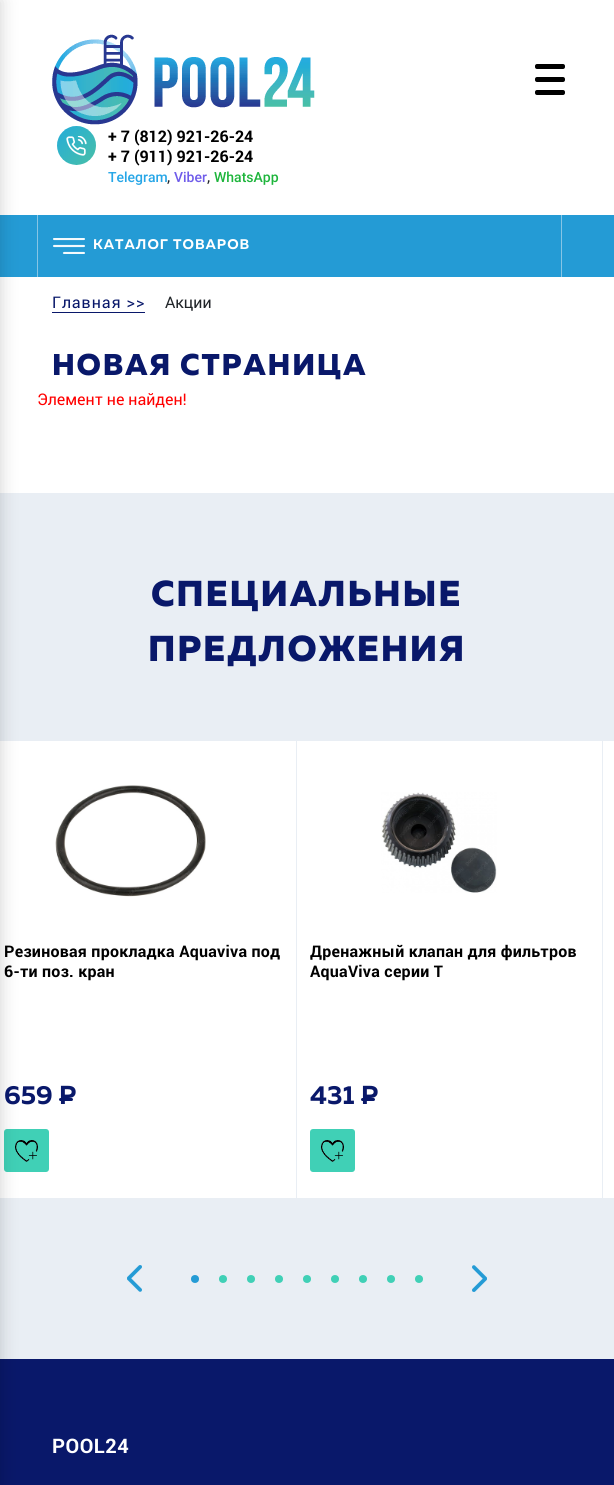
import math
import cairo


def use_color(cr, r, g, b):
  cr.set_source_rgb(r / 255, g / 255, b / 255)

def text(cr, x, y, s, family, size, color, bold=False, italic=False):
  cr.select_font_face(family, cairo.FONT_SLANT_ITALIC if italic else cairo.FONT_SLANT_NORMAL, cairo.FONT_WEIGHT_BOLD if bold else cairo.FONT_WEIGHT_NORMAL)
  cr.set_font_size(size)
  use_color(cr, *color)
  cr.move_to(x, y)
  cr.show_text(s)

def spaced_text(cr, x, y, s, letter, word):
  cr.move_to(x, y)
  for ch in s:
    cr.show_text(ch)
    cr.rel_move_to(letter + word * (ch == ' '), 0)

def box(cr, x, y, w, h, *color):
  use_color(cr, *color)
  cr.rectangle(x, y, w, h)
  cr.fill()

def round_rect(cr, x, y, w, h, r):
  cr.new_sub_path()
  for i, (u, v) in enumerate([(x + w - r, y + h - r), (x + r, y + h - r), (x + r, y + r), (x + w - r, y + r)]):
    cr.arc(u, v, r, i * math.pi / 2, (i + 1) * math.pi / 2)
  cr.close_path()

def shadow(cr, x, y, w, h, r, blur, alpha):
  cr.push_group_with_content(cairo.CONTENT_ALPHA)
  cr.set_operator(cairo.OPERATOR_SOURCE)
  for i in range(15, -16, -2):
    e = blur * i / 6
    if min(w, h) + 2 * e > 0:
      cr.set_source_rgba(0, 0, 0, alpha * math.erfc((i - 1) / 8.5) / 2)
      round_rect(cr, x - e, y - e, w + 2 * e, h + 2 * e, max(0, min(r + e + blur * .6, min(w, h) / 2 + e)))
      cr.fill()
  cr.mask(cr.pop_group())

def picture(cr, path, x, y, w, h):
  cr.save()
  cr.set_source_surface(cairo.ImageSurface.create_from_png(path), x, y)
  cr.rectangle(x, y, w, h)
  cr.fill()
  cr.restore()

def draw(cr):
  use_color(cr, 255, 255, 255)
  cr.paint()
  box(cr, 0, 215, 614, 62, 36, 155, 213)
  box(cr, 0, 493, 614, 866, 233, 238, 244)
  box(cr, 0, 741, 296, 457, 255, 255, 255)
  use_color(cr, 64, 208, 182)
  round_rect(cr, 4, 1129, 45, 43, 3)
  cr.fill()
  picture(cr, "img_06.png", 15, 1140, 23, 22)
  box(cr, 0, 1359, 614, 126, 9, 24, 106)
  use_color(cr, 1, 1, 1)
  shadow(cr, -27, 0, 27, 1485, 0, 9, 0.18)
  picture(cr, "img_01.png", 52, 34, 263, 91)
  use_color(cr, 0, 0, 0)
  round_rect(cr, 535, 77, 30, 5, 2)
  cr.fill()
  round_rect(cr, 535, 64, 30, 5, 2)
  cr.fill()
  round_rect(cr, 535, 90, 30, 5, 2)
  cr.fill()
  picture(cr, "img_02.png", 57, 126, 39, 39)
  box(cr, 561, 215, 1, 62, 135, 197, 229)
  box(cr, 37, 215, 1, 62, 135, 197, 229)
  picture(cr, "img_03.png", 53, 238, 32, 16)
  box(cr, 52, 312, 93, 1, 9, 24, 106)
  picture(cr, "img_04.png", 55, 785, 151, 112)
  picture(cr, "img_05.png", 60, 1085, 16, 19)
  round_rect(cr, 59, 1098, 14, 3, 1.5)
  cr.fill()
  box(cr, 297, 741, 305, 457, 255, 255, 255)
  picture(cr, "img_07.png", 381, 792, 116, 101)
  picture(cr, "img_05.png", 362, 1085, 16, 19)
  use_color(cr, 9, 24, 106)
  round_rect(cr, 361, 1098, 14, 3, 1.5)
  cr.fill()
  use_color(cr, 64, 208, 182)
  round_rect(cr, 310, 1129, 45, 43, 3)
  cr.fill()
  picture(cr, "img_06.png", 321, 1140, 23, 22)
  box(cr, 603, 741, 11, 457, 255, 255, 255)
  picture(cr, "img_08.png", 127, 1265, 15, 27)
  picture(cr, "img_09.png", 472, 1265, 15, 27)
  use_color(cr, 36, 155, 213)
  cr.arc(195, 1279, 4, 0, 2 * math.pi)
  cr.fill()
  use_color(cr, 64, 208, 182)
  cr.arc(223, 1279, 4, 0, 2 * math.pi)
  cr.fill()
  cr.arc(251, 1279, 4, 0, 2 * math.pi)
  cr.fill()
  cr.arc(279, 1279, 4, 0, 2 * math.pi)
  cr.fill()
  cr.arc(307, 1279, 4, 0, 2 * math.pi)
  cr.fill()
  cr.arc(335, 1279, 4, 0, 2 * math.pi)
  cr.fill()
  cr.arc(363, 1279, 4, 0, 2 * math.pi)
  cr.fill()
  cr.arc(391, 1279, 4, 0, 2 * math.pi)
  cr.fill()
  cr.arc(419, 1279, 4, 0, 2 * math.pi)
  cr.fill()
  text(cr, 108, 142, "+ 7 (812) 921-26-24", "Roboto", 16, (0, 0, 0), bold=True)
  text(cr, 108, 162, "+ 7 (911) 921-26-24", "Roboto", 16, (0, 0, 0), bold=True)
  text(cr, 108, 182, "Telegram", "Roboto Medium", 14, (38, 166, 231))
  text(cr, 167, 182, ",", "Roboto", 16, (33, 37, 41))
  text(cr, 174, 182, "Viber", "Roboto Medium", 14, (111, 92, 234))
  text(cr, 207, 182, ",", "Roboto", 16, (33, 37, 41))
  text(cr, 214, 182, "WhatsApp", "Roboto Medium", 14, (30, 181, 60))
  cr.select_font_face("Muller", cairo.FONT_SLANT_NORMAL, cairo.FONT_WEIGHT_BOLD)
  use_color(cr, 255, 255, 255)
  spaced_text(cr, 93, 249, "КАТАЛОГ ТОВАРОВ", 1, 0)
  cr.select_font_face("Roboto")
  cr.set_font_size(16)
  use_color(cr, 9, 24, 106)
  spaced_text(cr, 52, 308, "Главная >>", 1, 0)
  text(cr, 165, 308, "Акции", "Roboto", 16, (33, 37, 41))
  cr.select_font_face("Muller ExtraBold")
  cr.set_font_size(30)
  use_color(cr, 9, 24, 106)
  spaced_text(cr, 52, 375, "НОВАЯ СТРАНИЦА", 1.75, 0)
  text(cr, 37, 405, "Элемент не найден!", "Roboto", 16, (255, 0, 0))
  cr.select_font_face("Muller ExtraBold")
  cr.set_font_size(36)
  use_color(cr, 9, 24, 106)
  spaced_text(cr, 151, 606, "СПЕЦИАЛЬНЫЕ", 1.75, 0)
  spaced_text(cr, 148, 661, "ПРЕДЛОЖЕНИЯ", 1.75, 0)
  cr.select_font_face("Roboto", cairo.FONT_SLANT_NORMAL, cairo.FONT_WEIGHT_BOLD)
  cr.set_font_size(16)
  use_color(cr, 0, 0, 0)
  spaced_text(cr, 4, 957, "Резиновая прокладка Aquaviva под", 0.25, 0)
  spaced_text(cr, 4, 977, "6-ти поз. кран", 0.25, 0)
  text(cr, 4, 1104, "659", "Muller", 26, (9, 24, 106), bold=True)
  cr.select_font_face("Roboto", cairo.FONT_SLANT_NORMAL, cairo.FONT_WEIGHT_BOLD)
  cr.set_font_size(16)
  use_color(cr, 0, 0, 0)
  spaced_text(cr, 310, 957, "Дренажный клапан для фильтров", 0.25, 0)
  spaced_text(cr, 310, 977, "AquaViva серии T", 0.25, 0)
  text(cr, 310, 1104, "431", "Muller", 26, (9, 24, 106), bold=True)
  cr.select_font_face("Roboto", cairo.FONT_SLANT_NORMAL, cairo.FONT_WEIGHT_BOLD)
  cr.set_font_size(20)
  use_color(cr, 255, 255, 255)
  spaced_text(cr, 52, 1453, "POOL24", 0.5, 0)


surface = cairo.ImageSurface(cairo.FORMAT_RGB24, 614, 1485)
cr = cairo.Context(surface)
options = cairo.FontOptions()
options.set_hint_metrics(cairo.HINT_METRICS_OFF)
options.set_hint_style(cairo.HINT_STYLE_NONE)
cr.set_font_options(options)
cr.set_miter_limit(4)
draw(cr)
surface.write_to_png("out.png")
